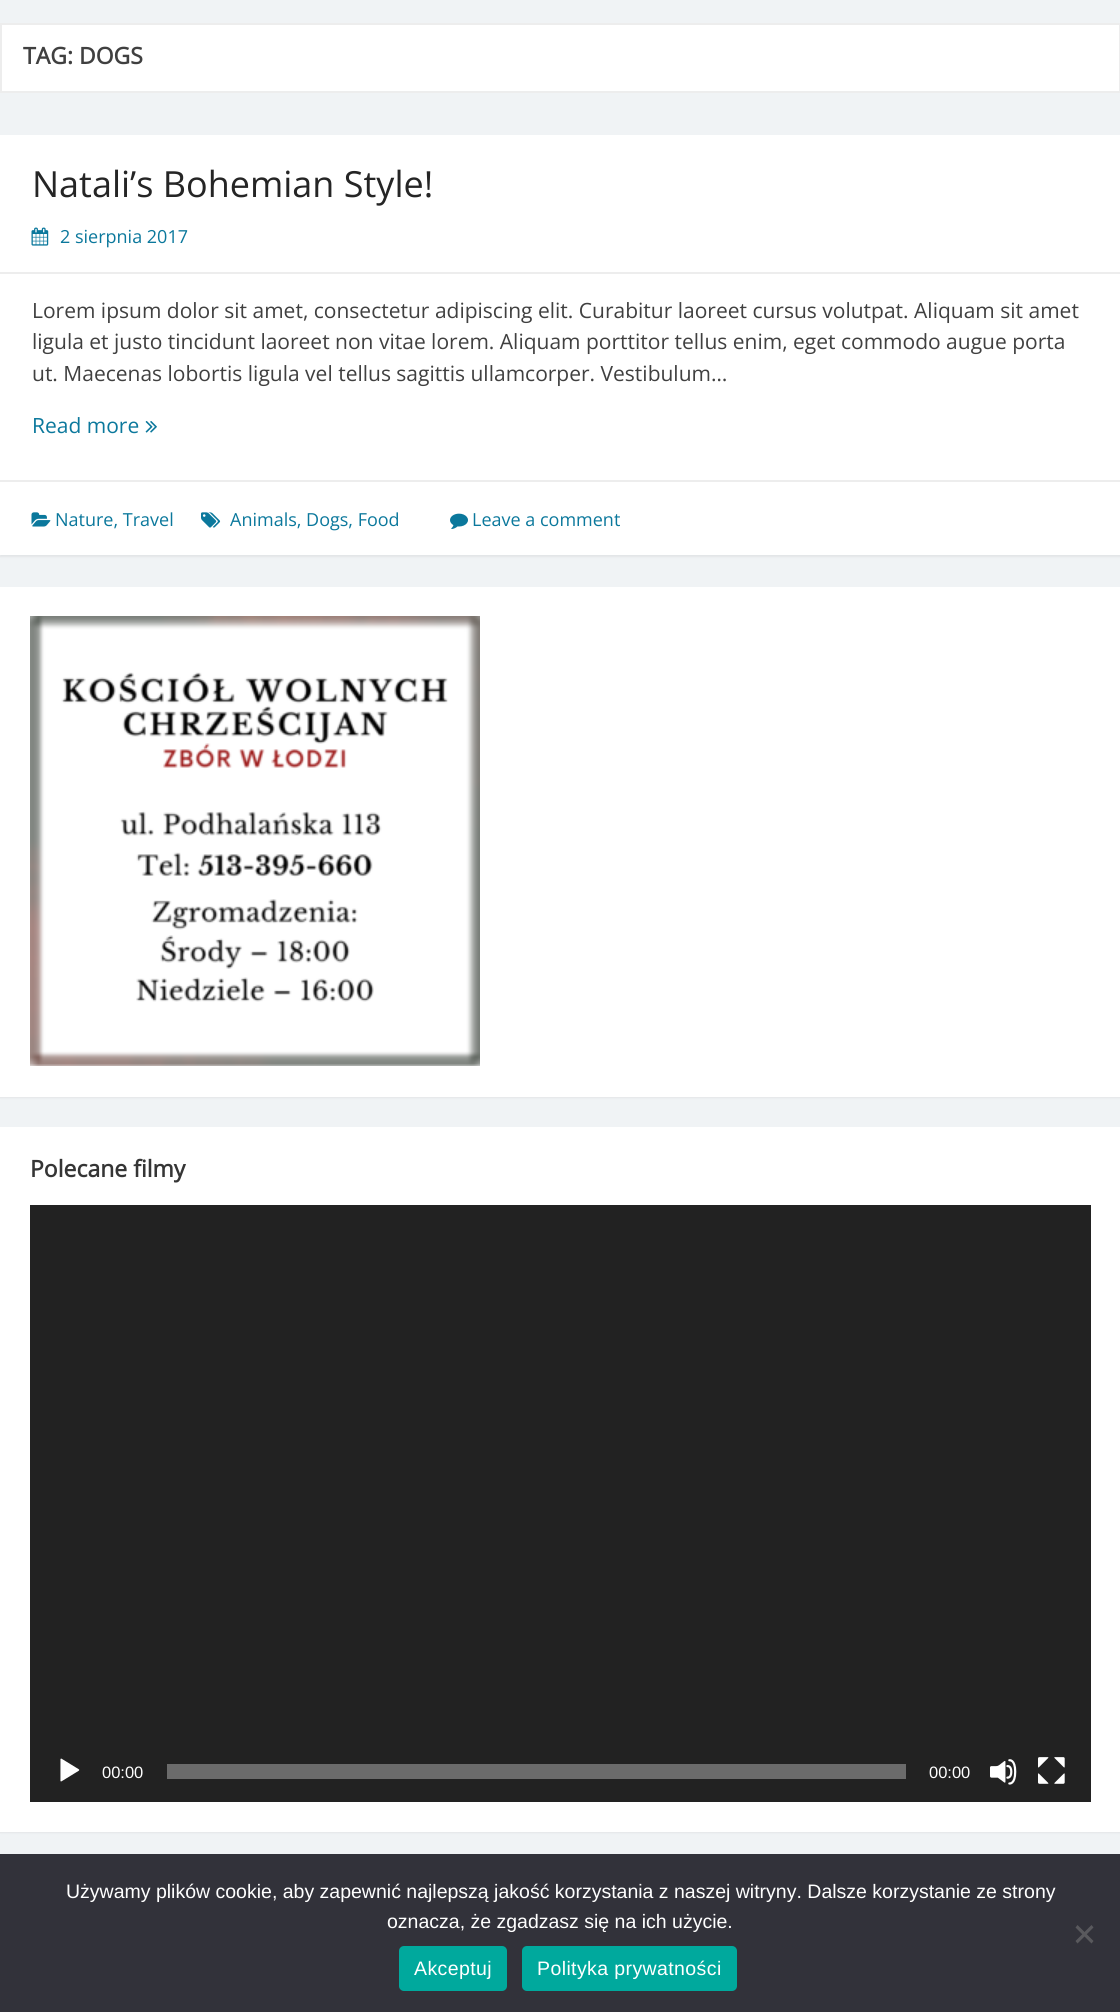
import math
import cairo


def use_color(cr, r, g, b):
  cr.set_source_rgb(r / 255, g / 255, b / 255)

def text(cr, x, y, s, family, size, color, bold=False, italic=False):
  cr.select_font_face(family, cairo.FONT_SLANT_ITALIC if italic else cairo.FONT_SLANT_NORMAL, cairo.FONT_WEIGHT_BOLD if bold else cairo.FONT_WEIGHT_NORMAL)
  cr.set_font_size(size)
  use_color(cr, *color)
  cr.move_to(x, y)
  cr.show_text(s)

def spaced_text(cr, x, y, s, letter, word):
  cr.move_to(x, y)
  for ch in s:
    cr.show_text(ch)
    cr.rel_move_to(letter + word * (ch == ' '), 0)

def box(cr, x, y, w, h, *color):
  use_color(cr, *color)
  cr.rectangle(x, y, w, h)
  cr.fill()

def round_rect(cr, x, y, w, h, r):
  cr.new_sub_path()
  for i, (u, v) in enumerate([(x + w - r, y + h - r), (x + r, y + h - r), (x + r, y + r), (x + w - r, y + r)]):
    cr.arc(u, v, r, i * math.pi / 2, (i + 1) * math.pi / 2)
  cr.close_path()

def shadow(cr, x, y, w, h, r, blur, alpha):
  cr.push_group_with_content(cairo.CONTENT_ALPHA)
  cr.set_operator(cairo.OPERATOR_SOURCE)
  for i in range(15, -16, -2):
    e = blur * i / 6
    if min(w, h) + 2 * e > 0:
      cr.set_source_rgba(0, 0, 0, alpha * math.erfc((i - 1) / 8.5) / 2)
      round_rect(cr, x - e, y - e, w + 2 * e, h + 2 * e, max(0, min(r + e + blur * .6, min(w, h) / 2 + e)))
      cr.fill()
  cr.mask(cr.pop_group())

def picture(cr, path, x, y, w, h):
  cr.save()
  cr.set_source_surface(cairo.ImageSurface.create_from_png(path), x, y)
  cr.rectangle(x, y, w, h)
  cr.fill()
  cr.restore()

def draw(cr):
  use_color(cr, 240, 243, 245)
  cr.paint()
  use_color(cr, 255, 255, 255)
  cr.rectangle(1, 24, 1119, 68)
  cr.fill_preserve()
  use_color(cr, 237, 237, 237)
  cr.stroke()
  use_color(cr, 0, 0, 0)
  shadow(cr, 0, 137, 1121, 420, 0, 1, 0.06)
  box(cr, 0, 135, 1120, 420, 255, 255, 255)
  box(cr, 0, 272, 1120, 2, 237, 237, 237)
  picture(cr, "img_01.png", 31, 227, 18, 19)
  picture(cr, "img_02.png", 145, 421, 12, 12)
  box(cr, 0, 480, 1120, 2, 237, 237, 237)
  picture(cr, "img_03.png", 31, 512, 20, 15)
  picture(cr, "img_04.png", 201, 512, 20, 16)
  picture(cr, "img_05.png", 450, 513, 18, 16)
  use_color(cr, 0, 0, 0)
  shadow(cr, 0, 588, 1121, 510, 0, 1, 0.06)
  box(cr, 0, 587, 1120, 510, 255, 255, 255)
  picture(cr, "img_06.png", 30, 616, 450, 450)
  use_color(cr, 0, 0, 0)
  shadow(cr, 0, 1128, 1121, 705, 0, 1, 0.06)
  box(cr, 0, 1127, 1120, 705, 255, 255, 255)
  box(cr, 30, 1205, 1061, 597, 34, 34, 34)
  picture(cr, "img_07.png", 60, 1758, 20, 24)
  box(cr, 167, 1764, 739, 15, 107, 107, 107)
  picture(cr, "img_08.png", 990, 1759, 27, 26)
  picture(cr, "img_09.png", 1038, 1757, 27, 27)
  box(cr, 0, 1854, 1120, 158, 50, 50, 58)
  use_color(cr, 89, 89, 93)
  cr.new_path()
  cr.move_to(1091.5, 1925)
  cr.line_to(1093.5, 1927.5)
  cr.line_to(1077.5, 1943.5)
  cr.line_to(1075.5, 1941)
  cr.close_path()
  cr.fill()
  cr.new_path()
  cr.move_to(1075.5, 1927.5)
  cr.line_to(1077.5, 1925)
  cr.line_to(1093.5, 1941)
  cr.line_to(1091.5, 1943.5)
  cr.close_path()
  cr.fill()
  use_color(cr, 0, 169, 157)
  round_rect(cr, 399, 1946, 108, 45, 5)
  cr.fill()
  round_rect(cr, 522, 1946, 215, 45, 5)
  cr.fill()
  text(cr, 23, 64, "TAG: DOGS", "Open Sans", 23, (64, 64, 64), bold=True)
  text(cr, 32, 197, "Natali’s Bohemian Style!", "Open Sans", 36, (37, 37, 37))
  text(cr, 60, 243, "2 sierpnia 2017", "Open Sans", 18, (11, 120, 156))
  text(cr, 32, 318, "Lorem ipsum dolor sit amet, consectetur adipiscing elit. Curabitur laoreet cursus volutpat. Aliquam sit amet", "Open Sans", 21, (64, 64, 64))
  text(cr, 32, 349, "ligula et justo tincidunt laoreet non vitae lorem. Aliquam porttitor tellus enim, eget commodo augue porta", "Open Sans", 21, (64, 64, 64))
  text(cr, 32, 381, "ut. Maecenas lobortis ligula vel tellus sagittis ullamcorper. Vestibulum…", "Open Sans", 21, (64, 64, 64))
  text(cr, 32, 433, "Read more", "Open Sans", 21, (11, 120, 156))
  text(cr, 55, 526, "Nature, Travel", "Open Sans", 18, (11, 120, 156))
  text(cr, 230, 526, "Animals, Dogs, Food", "Open Sans", 18, (11, 120, 156))
  text(cr, 472, 526, "Leave a comment", "Open Sans", 18, (11, 120, 156))
  text(cr, 30, 1177, "Polecane filmy", "Open Sans", 23, (53, 53, 53), bold=True)
  text(cr, 102, 1778, "00:00", "Liberation Sans", 16.5, (255, 255, 255))
  text(cr, 929, 1778, "00:00", "Liberation Sans", 16.5, (255, 255, 255))
  text(cr, 66, 1898, "Używamy plików cookie, aby zapewnić najlepszą jakość korzystania z naszej witryny. Dalsze korzystanie ze strony", "Liberation Sans", 19.5, (255, 255, 255))
  text(cr, 387, 1928, "oznacza, że zgadzasz się na ich użycie.", "Liberation Sans", 19.5, (255, 255, 255))
  spaced_text(cr, 414, 1975, "Akceptuj", 0.4, 0)
  spaced_text(cr, 537, 1975, "Polityka prywatności", 0.4, 0)


surface = cairo.ImageSurface(cairo.FORMAT_RGB24, 1120, 2012)
cr = cairo.Context(surface)
options = cairo.FontOptions()
options.set_hint_metrics(cairo.HINT_METRICS_OFF)
options.set_hint_style(cairo.HINT_STYLE_NONE)
cr.set_font_options(options)
cr.set_miter_limit(4)
draw(cr)
surface.write_to_png("out.png")
